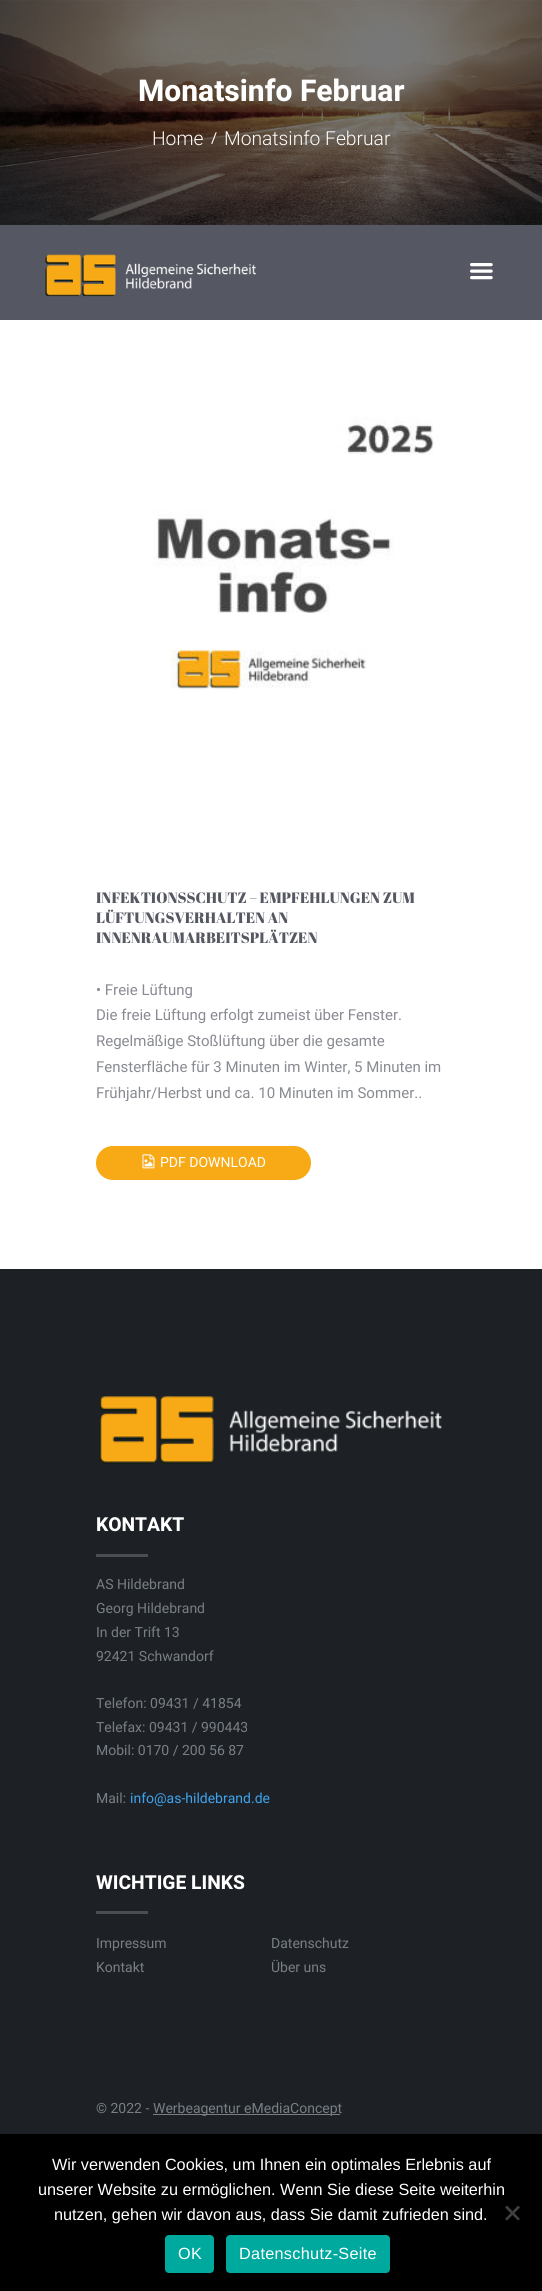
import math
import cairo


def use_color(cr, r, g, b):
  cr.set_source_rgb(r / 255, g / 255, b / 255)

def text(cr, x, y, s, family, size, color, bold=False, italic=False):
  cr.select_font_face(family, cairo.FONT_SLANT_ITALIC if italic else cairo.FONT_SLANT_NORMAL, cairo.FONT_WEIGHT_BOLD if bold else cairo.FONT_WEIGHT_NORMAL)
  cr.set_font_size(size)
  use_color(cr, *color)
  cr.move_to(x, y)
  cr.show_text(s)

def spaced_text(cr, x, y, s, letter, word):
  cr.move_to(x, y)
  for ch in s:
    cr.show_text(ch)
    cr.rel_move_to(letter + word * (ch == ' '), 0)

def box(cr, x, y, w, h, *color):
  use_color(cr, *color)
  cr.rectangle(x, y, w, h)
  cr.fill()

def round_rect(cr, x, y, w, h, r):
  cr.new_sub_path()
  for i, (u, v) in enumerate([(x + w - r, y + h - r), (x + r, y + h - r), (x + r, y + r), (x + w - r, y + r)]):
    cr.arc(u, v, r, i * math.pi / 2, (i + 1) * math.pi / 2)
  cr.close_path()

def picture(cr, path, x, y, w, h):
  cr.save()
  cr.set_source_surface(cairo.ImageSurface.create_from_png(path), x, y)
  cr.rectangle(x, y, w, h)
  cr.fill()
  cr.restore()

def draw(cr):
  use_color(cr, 255, 255, 255)
  cr.paint()
  picture(cr, "img_01.png", 0, 0, 542, 225)
  box(cr, 0, 225, 542, 95, 85, 88, 98)
  picture(cr, "img_02.png", 45, 254, 211, 43)
  picture(cr, "img_03.png", 470, 263, 23, 17)
  picture(cr, "img_04.png", 153, 417, 281, 273)
  use_color(cr, 247, 169, 22)
  round_rect(cr, 96, 1146, 215, 34, 17)
  cr.fill()
  picture(cr, "img_05.png", 142, 1154, 13, 15)
  box(cr, 0, 1269, 542, 865, 29, 33, 37)
  picture(cr, "img_06.png", 99, 1396, 343, 68)
  box(cr, 96, 1554, 52, 3, 74, 77, 81)
  box(cr, 96, 1911, 52, 3, 74, 77, 81)
  box(cr, 153, 2114, 187, 1, 119, 126, 133)
  box(cr, 0, 2134, 542, 157, 0, 0, 0)
  use_color(cr, 64, 64, 64)
  cr.new_path()
  cr.move_to(518, 2205.5)
  cr.line_to(520, 2207.5)
  cr.line_to(507, 2220.5)
  cr.line_to(505, 2219)
  cr.close_path()
  cr.fill()
  cr.new_path()
  cr.move_to(505, 2207.5)
  cr.line_to(507, 2205.5)
  cr.line_to(520, 2219)
  cr.line_to(518, 2220.5)
  cr.close_path()
  cr.fill()
  use_color(cr, 0, 169, 157)
  round_rect(cr, 165, 2235, 49, 38, 4)
  cr.fill()
  round_rect(cr, 226, 2235, 164, 38, 4)
  cr.fill()
  text(cr, 138, 101, "Monatsinfo Februar", "Heebo", 30, (255, 255, 255), bold=True)
  text(cr, 152, 145, "Home", "Heebo Light", 19.25, (255, 255, 255))
  text(cr, 211, 143, "/", "Heebo", 15, (255, 255, 255))
  text(cr, 224, 145, "Monatsinfo Februar", "Heebo Light", 19.25, (255, 255, 255))
  text(cr, 96, 903, "INFEKTIONSSCHUTZ – EMPFEHLUNGEN ZUM", "Abril Fatface", 15, (85, 88, 98))
  text(cr, 96, 923, "LÜFTUNGSVERHALTEN AN", "Abril Fatface", 15, (85, 88, 98))
  text(cr, 96, 943, "INNENRAUMARBEITSPLÄTZEN", "Abril Fatface", 15, (85, 88, 98))
  text(cr, 96, 995, "• Freie Lüftung", "Heebo", 15, (137, 139, 146))
  text(cr, 96, 1020, "Die freie Lüftung erfolgt zumeist über Fenster.", "Heebo", 15, (137, 139, 146))
  text(cr, 96, 1046, "Regelmäßige Stoßlüftung über die gesamte", "Heebo", 15, (137, 139, 146))
  text(cr, 96, 1072, "Fensterfläche für 3 Minuten im Winter, 5 Minuten im", "Heebo", 15, (137, 139, 146))
  text(cr, 96, 1098, "Frühjahr/Herbst und ca. 10 Minuten im Sommer..", "Heebo", 15, (137, 139, 146))
  text(cr, 160, 1167, "PDF DOWNLOAD", "Heebo", 14, (255, 255, 255))
  text(cr, 96, 1531, "KONTAKT", "Heebo", 19.25, (255, 255, 255), bold=True)
  text(cr, 96, 1589, "AS Hildebrand", "Heebo", 14, (119, 126, 133))
  text(cr, 96, 1613, "Georg Hildebrand", "Heebo", 14, (119, 126, 133))
  text(cr, 96, 1637, "In der Trift 13", "Heebo", 14, (119, 126, 133))
  text(cr, 96, 1661, "92421 Schwandorf", "Heebo", 14, (119, 126, 133))
  text(cr, 96, 1708, "Telefon: 09431 / 41854", "Heebo", 14, (119, 126, 133))
  text(cr, 96, 1732, "Telefax: 09431 / 990443", "Heebo", 14, (119, 126, 133))
  text(cr, 96, 1755, "Mobil: 0170 / 200 56 87", "Heebo", 14, (119, 126, 133))
  text(cr, 96, 1803, "Mail:", "Heebo", 14, (119, 126, 133))
  text(cr, 130, 1803, "info@as-hildebrand.de", "Heebo", 14, (62, 162, 238))
  text(cr, 96, 1889, "WICHTIGE LINKS", "Heebo", 19.25, (255, 255, 255), bold=True)
  text(cr, 96, 1948, "Impressum", "Heebo", 14, (119, 126, 133))
  text(cr, 271, 1948, "Datenschutz", "Heebo", 14, (119, 126, 133))
  text(cr, 96, 1972, "Kontakt", "Heebo", 14, (119, 126, 133))
  text(cr, 271, 1972, "Über uns", "Heebo", 14, (119, 126, 133))
  text(cr, 96, 2113, "© 2022 -", "Heebo", 14, (119, 126, 133))
  text(cr, 153, 2113, "Werbeagentur eMediaConcept", "Heebo", 14, (119, 126, 133))
  text(cr, 52, 2170, "Wir verwenden Cookies, um Ihnen ein optimales Erlebnis auf", "Liberation Sans", 16.25, (255, 255, 255))
  text(cr, 38, 2195, "unserer Website zu ermöglichen. Wenn Sie diese Seite weiterhin", "Liberation Sans", 16.25, (255, 255, 255))
  text(cr, 54, 2220, "nutzen, gehen wir davon aus, dass Sie damit zufrieden sind.", "Liberation Sans", 16.25, (255, 255, 255))
  spaced_text(cr, 178, 2259, "OK", 0.3, 0)
  spaced_text(cr, 239, 2259, "Datenschutz-Seite", 0.3, 0)


surface = cairo.ImageSurface(cairo.FORMAT_RGB24, 542, 2291)
cr = cairo.Context(surface)
options = cairo.FontOptions()
options.set_hint_metrics(cairo.HINT_METRICS_OFF)
options.set_hint_style(cairo.HINT_STYLE_NONE)
cr.set_font_options(options)
cr.set_miter_limit(4)
draw(cr)
surface.write_to_png("out.png")
